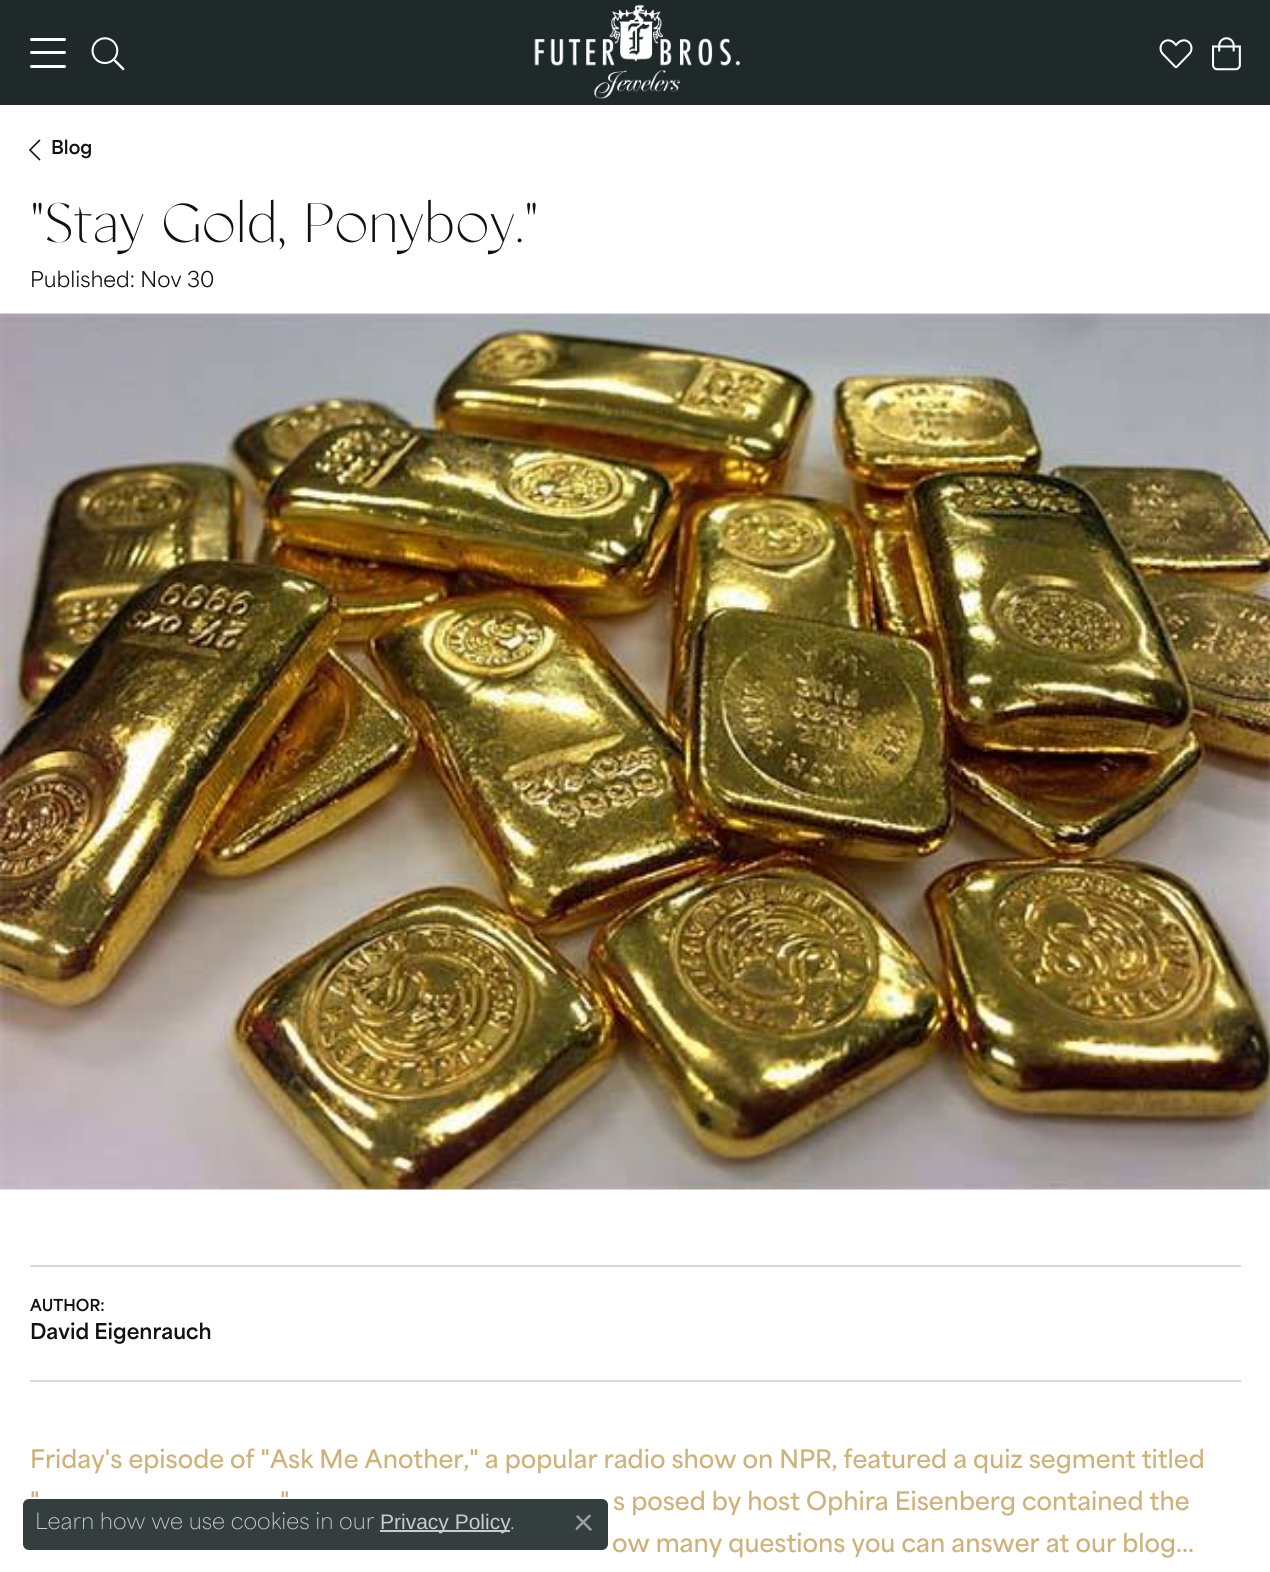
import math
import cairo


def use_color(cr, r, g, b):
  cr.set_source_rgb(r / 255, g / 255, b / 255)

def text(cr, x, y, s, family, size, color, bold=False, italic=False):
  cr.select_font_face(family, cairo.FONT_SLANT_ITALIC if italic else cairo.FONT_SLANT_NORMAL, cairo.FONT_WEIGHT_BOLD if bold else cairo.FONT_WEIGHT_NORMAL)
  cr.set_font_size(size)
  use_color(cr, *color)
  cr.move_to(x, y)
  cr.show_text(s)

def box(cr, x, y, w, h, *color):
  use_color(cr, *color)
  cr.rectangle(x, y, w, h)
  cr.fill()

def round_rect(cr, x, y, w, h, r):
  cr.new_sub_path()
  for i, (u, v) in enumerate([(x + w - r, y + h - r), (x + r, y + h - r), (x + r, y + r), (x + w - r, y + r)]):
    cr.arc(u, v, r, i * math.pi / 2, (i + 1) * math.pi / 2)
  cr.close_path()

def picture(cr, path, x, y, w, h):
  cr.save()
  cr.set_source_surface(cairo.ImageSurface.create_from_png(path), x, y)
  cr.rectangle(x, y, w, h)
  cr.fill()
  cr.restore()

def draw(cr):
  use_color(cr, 31, 41, 42)
  cr.paint()
  use_color(cr, 255, 255, 255)
  round_rect(cr, 30, 38, 36, 3, 1.5)
  cr.fill()
  round_rect(cr, 30, 51, 36, 3, 1.5)
  cr.fill()
  round_rect(cr, 30, 65, 36, 3, 1.5)
  cr.fill()
  picture(cr, "img_01.png", 91, 37, 34, 34)
  picture(cr, "img_02.png", 534, 4, 206, 95)
  picture(cr, "img_03.png", 1159, 39, 34, 30)
  picture(cr, "img_04.png", 1212, 37, 29, 34)
  box(cr, 0, 105, 1270, 209, 255, 255, 255)
  picture(cr, "img_05.png", 29, 139, 12, 22)
  box(cr, 0, 1189, 1270, 383, 255, 255, 255)
  picture(cr, "img_06.png", 0, 313, 1270, 877)
  box(cr, 30, 1265, 1211, 2, 222, 218, 210)
  box(cr, 30, 1380, 1211, 2, 222, 218, 210)
  cr.set_source_rgba(0.122, 0.161, 0.165, 0.9)
  round_rect(cr, 23, 1499, 585, 51, 6)
  cr.fill()
  box(cr, 380, 1530, 130, 2, 204, 204, 204)
  picture(cr, "img_07.png", 575, 1514, 17, 17)
  text(cr, 51, 154, "Blog", "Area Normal", 18, (17, 17, 17), bold=True)
  text(cr, 30, 242, "\"Stay Gold, Ponyboy.\"", "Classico", 55.25, (17, 17, 17))
  text(cr, 30, 287, "Published: Nov 30", "Area Normal", 20.5, (17, 17, 17))
  text(cr, 30, 1311, "AUTHOR:", "Area Normal", 15.5, (17, 17, 17), bold=True)
  text(cr, 30, 1339, "David Eigenrauch", "Area Normal", 20.5, (17, 17, 17), bold=True)
  text(cr, 30, 1468, "Friday's episode of \"Ask Me Another,\" a popular radio show on NPR, featured a quiz segment titled", "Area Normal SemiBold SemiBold", 24, (206, 178, 124))
  text(cr, 30, 1510, "\"", "Area Normal SemiBold SemiBold", 24, (206, 178, 124))
  text(cr, 280, 1510, "\"", "Area Normal SemiBold SemiBold", 24, (206, 178, 124))
  text(cr, 613, 1510, "s posed by host Ophira Eisenberg contained the", "Area Normal SemiBold SemiBold", 24, (206, 178, 124))
  text(cr, 612, 1552, "ow many questions you can answer at our blog...", "Area Normal SemiBold SemiBold", 24, (206, 178, 124))
  text(cr, 35, 1529, "Learn how we use cookies in our", "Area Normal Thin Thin", 21, (204, 204, 204))
  text(cr, 380, 1529, "Privacy Policy", "Liberation Sans", 21, (204, 204, 204))
  text(cr, 510, 1529, ".", "Area Normal Thin Thin", 21, (204, 204, 204))


surface = cairo.ImageSurface(cairo.FORMAT_RGB24, 1270, 1572)
cr = cairo.Context(surface)
options = cairo.FontOptions()
options.set_hint_metrics(cairo.HINT_METRICS_OFF)
options.set_hint_style(cairo.HINT_STYLE_NONE)
cr.set_font_options(options)
cr.set_miter_limit(4)
draw(cr)
surface.write_to_png("out.png")
